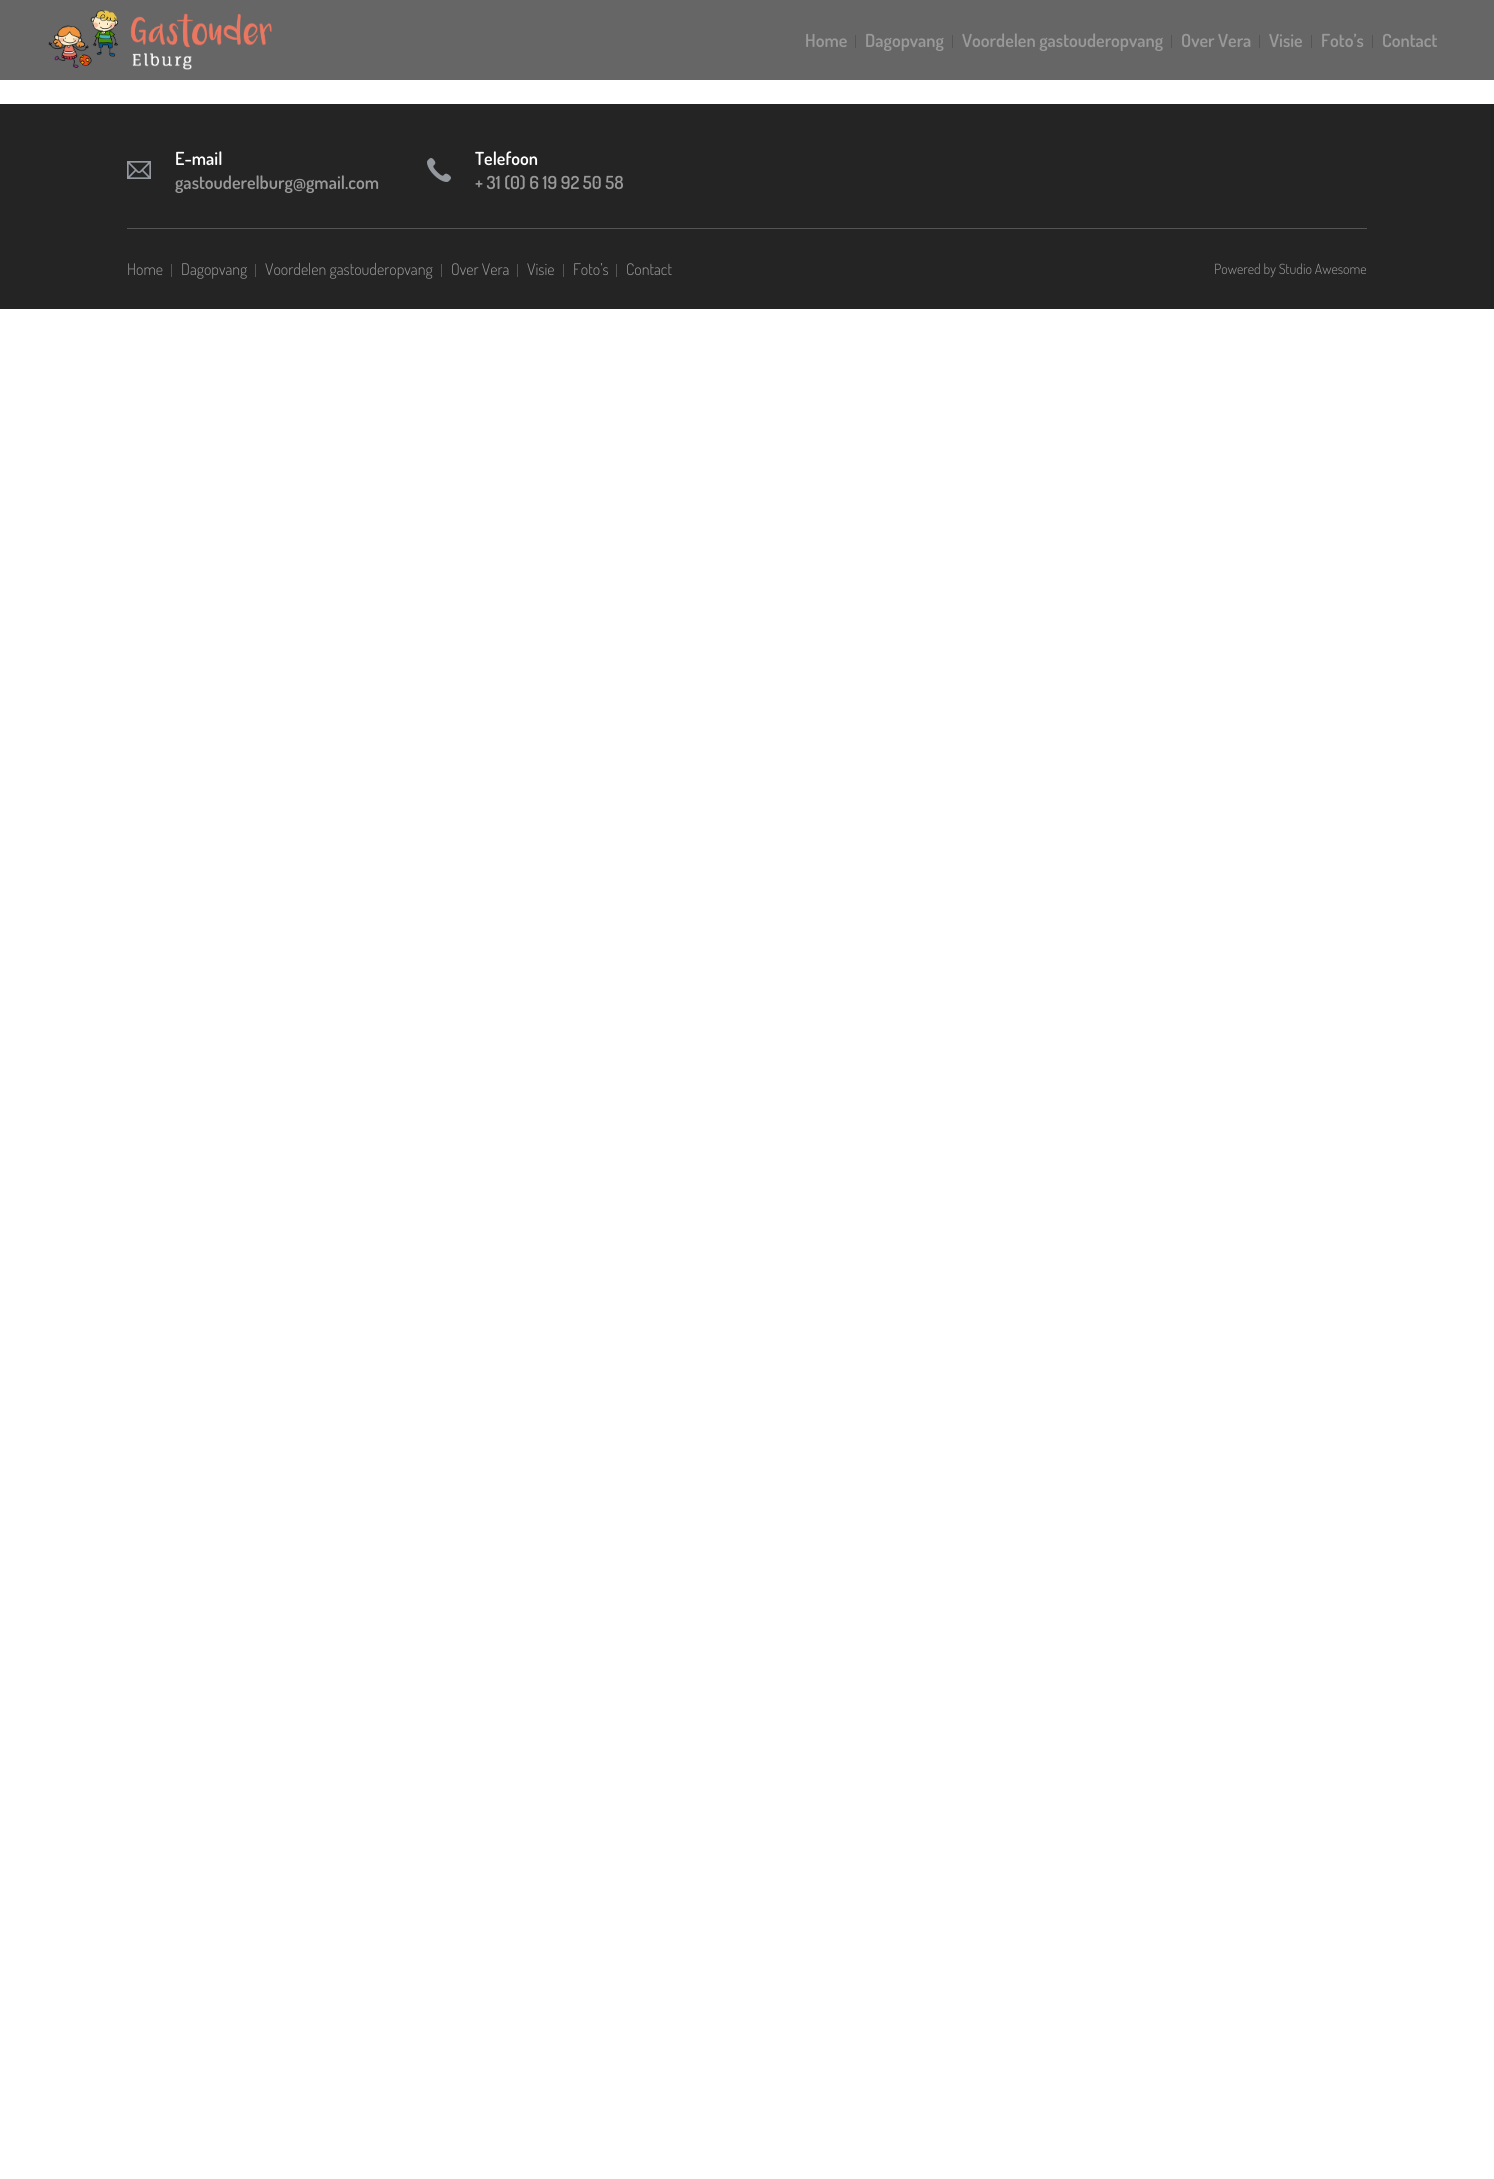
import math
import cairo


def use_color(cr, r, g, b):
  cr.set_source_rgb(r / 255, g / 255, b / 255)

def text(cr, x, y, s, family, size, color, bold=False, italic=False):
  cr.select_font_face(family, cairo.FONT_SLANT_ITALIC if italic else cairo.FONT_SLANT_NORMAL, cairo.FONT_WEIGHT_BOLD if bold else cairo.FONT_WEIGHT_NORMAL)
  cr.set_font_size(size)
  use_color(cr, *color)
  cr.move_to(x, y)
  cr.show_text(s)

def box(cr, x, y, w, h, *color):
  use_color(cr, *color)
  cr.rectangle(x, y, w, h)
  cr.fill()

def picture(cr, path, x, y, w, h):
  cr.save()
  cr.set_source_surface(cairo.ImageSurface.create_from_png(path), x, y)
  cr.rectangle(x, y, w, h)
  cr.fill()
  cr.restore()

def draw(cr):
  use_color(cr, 255, 255, 255)
  cr.paint()
  box(cr, 0, 0, 1494, 80, 102, 102, 102)
  picture(cr, "img_01.png", 48, 10, 224, 60)
  box(cr, 855, 35, 1, 13, 85, 85, 85)
  box(cr, 952, 35, 1, 13, 85, 85, 85)
  box(cr, 1171, 35, 1, 13, 85, 85, 85)
  box(cr, 1259, 35, 1, 13, 85, 85, 85)
  box(cr, 1311, 35, 1, 13, 85, 85, 85)
  box(cr, 1372, 35, 1, 13, 85, 85, 85)
  box(cr, 0, 104, 1494, 205, 36, 36, 36)
  box(cr, 127, 228, 1240, 1, 85, 85, 85)
  picture(cr, "img_02.png", 127, 161, 24, 18)
  picture(cr, "img_03.png", 427, 158, 24, 24)
  box(cr, 171, 264, 1, 13, 85, 85, 85)
  box(cr, 255, 264, 1, 13, 85, 85, 85)
  box(cr, 441, 264, 1, 13, 85, 85, 85)
  box(cr, 517, 264, 1, 13, 85, 85, 85)
  box(cr, 563, 264, 1, 13, 85, 85, 85)
  box(cr, 616, 264, 1, 13, 85, 85, 85)
  text(cr, 805, 47, "Home", "Dosis SemiBold", 18, (153, 153, 153))
  text(cr, 865, 47, "Dagopvang", "Dosis SemiBold", 18, (153, 153, 153))
  text(cr, 962, 47, "Voordelen gastouderopvang", "Dosis SemiBold", 18, (153, 153, 153))
  text(cr, 1181, 47, "Over Vera", "Dosis SemiBold", 18, (153, 153, 153))
  text(cr, 1269, 47, "Visie", "Dosis SemiBold", 18, (153, 153, 153))
  text(cr, 1321, 47, "Foto’s", "Dosis SemiBold", 18, (153, 153, 153))
  text(cr, 1382, 47, "Contact", "Dosis SemiBold", 18, (153, 153, 153))
  text(cr, 175, 165, "E-mail", "Dosis SemiBold", 18, (255, 255, 255))
  text(cr, 175, 189, "gastouderelburg@gmail.com", "Dosis SemiBold", 18, (153, 153, 153))
  text(cr, 475, 165, "Telefoon", "Dosis SemiBold", 18, (255, 255, 255))
  text(cr, 475, 189, "+ 31 (0) 6 19 92 50 58", "Dosis SemiBold", 18, (153, 153, 153))
  text(cr, 127, 275, "Home", "Dosis Light", 16, (153, 153, 153))
  text(cr, 181, 275, "Dagopvang", "Dosis Light", 16, (153, 153, 153))
  text(cr, 265, 275, "Voordelen gastouderopvang", "Dosis Light", 16, (153, 153, 153))
  text(cr, 451, 275, "Over Vera", "Dosis Light", 16, (153, 153, 153))
  text(cr, 527, 275, "Visie", "Dosis Light", 16, (153, 153, 153))
  text(cr, 573, 275, "Foto’s", "Dosis Light", 16, (153, 153, 153))
  text(cr, 626, 275, "Contact", "Dosis Light", 16, (153, 153, 153))
  text(cr, 1214, 274, "Powered by Studio Awesome", "Dosis Light", 14, (153, 153, 153))


surface = cairo.ImageSurface(cairo.FORMAT_RGB24, 1494, 2179)
cr = cairo.Context(surface)
options = cairo.FontOptions()
options.set_hint_metrics(cairo.HINT_METRICS_OFF)
options.set_hint_style(cairo.HINT_STYLE_NONE)
cr.set_font_options(options)
cr.set_miter_limit(4)
draw(cr)
surface.write_to_png("out.png")
